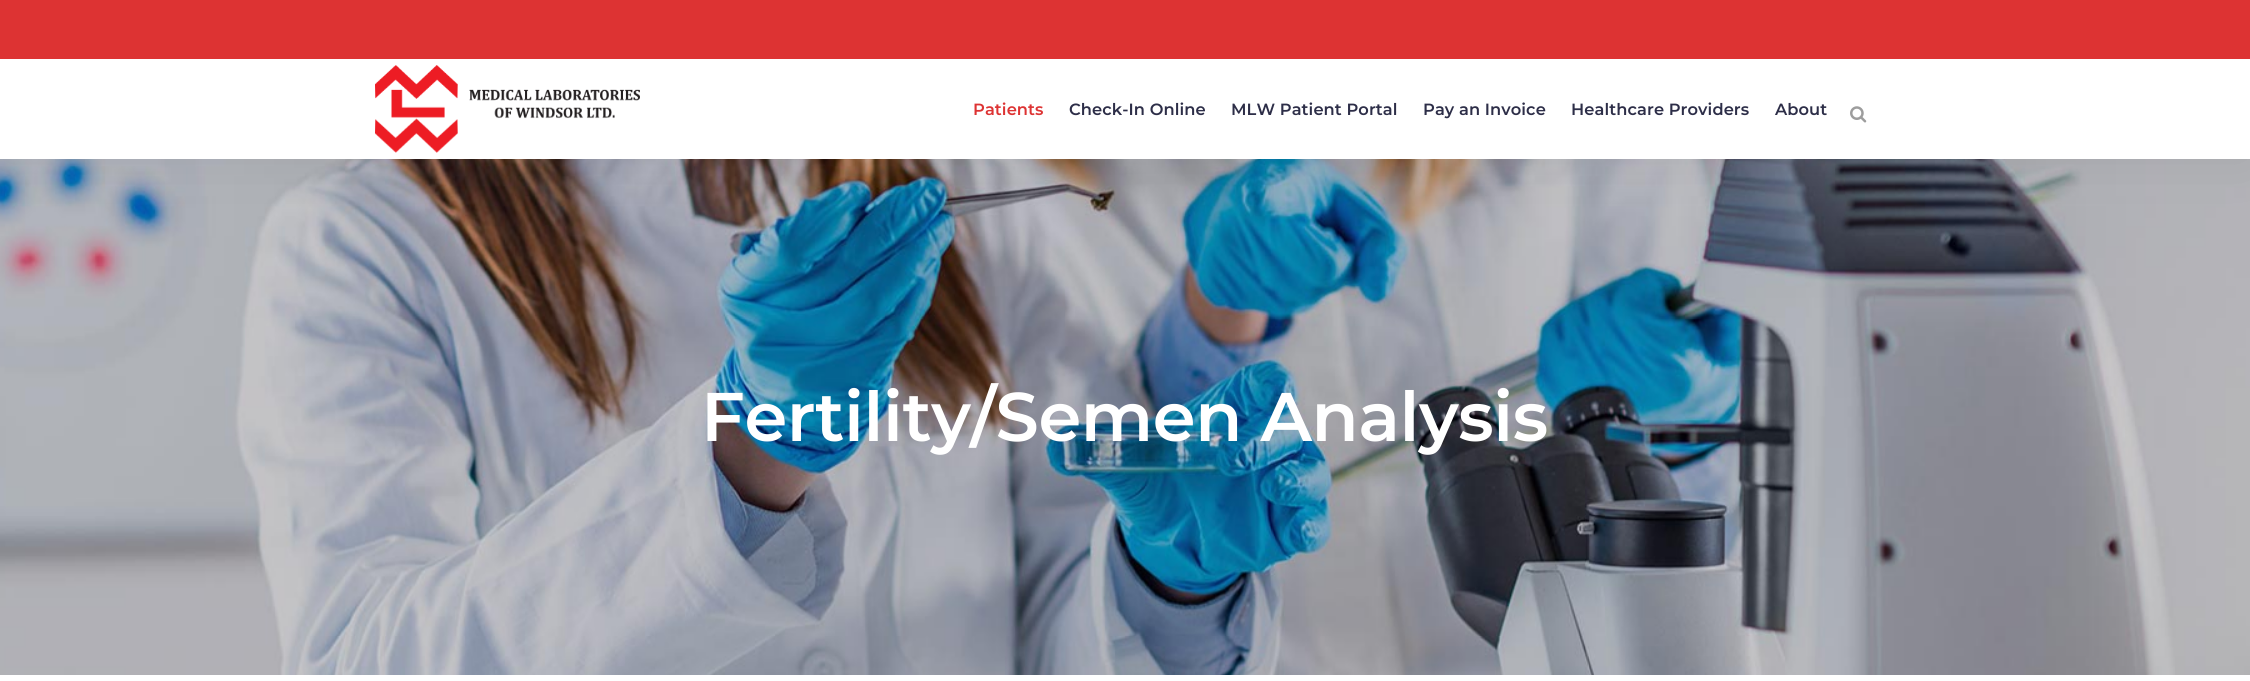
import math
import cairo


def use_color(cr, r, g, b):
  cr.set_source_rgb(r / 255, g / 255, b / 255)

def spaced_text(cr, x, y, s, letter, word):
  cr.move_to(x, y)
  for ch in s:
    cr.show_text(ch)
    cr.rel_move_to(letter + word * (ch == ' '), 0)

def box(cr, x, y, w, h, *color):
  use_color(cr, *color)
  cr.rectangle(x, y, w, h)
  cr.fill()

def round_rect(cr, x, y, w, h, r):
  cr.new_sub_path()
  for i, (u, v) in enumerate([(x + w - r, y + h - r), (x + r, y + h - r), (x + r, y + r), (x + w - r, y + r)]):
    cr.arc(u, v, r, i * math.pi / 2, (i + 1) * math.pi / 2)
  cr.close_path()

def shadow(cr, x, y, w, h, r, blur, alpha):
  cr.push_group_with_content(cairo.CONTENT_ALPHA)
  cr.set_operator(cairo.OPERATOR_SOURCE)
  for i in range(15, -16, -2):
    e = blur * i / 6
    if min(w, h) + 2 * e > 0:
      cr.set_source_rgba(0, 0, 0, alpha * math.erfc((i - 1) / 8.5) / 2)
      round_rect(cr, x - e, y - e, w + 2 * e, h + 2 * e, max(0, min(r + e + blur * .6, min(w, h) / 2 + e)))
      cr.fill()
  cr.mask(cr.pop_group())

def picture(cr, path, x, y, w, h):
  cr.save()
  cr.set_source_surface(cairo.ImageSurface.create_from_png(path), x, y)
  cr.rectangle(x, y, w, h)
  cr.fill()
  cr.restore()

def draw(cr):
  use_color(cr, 255, 255, 255)
  cr.paint()
  picture(cr, "img_03.png", 0, 159, 2250, 516)
  use_color(cr, 0, 0, 0)
  shadow(cr, 0, 60, 2250, 100, 0, 29, 0.07)
  box(cr, 0, 0, 2250, 59, 221, 51, 51)
  box(cr, 0, 59, 2250, 100, 255, 255, 255)
  picture(cr, "img_01.png", 375, 65, 265, 88)
  picture(cr, "img_02.png", 1850, 106, 17, 17)
  cr.select_font_face("Montserrat SemiBold")
  cr.set_font_size(16.25)
  use_color(cr, 221, 51, 51)
  spaced_text(cr, 973, 115, "Patients", 0.1, 0)
  use_color(cr, 45, 46, 72)
  spaced_text(cr, 1069, 115, "Check-In Online", 0.1, 0)
  spaced_text(cr, 1231, 115, "MLW Patient Portal", 0.1, 0)
  spaced_text(cr, 1423, 115, "Pay an Invoice", 0.1, 0)
  spaced_text(cr, 1571, 115, "Healthcare Providers", 0.1, 0)
  spaced_text(cr, 1775, 115, "About", 0.1, 0)
  cr.set_font_size(68.75)
  use_color(cr, 255, 255, 255)
  spaced_text(cr, 701, 441, "Fertility/Semen Analysis", -0.4, 0)


surface = cairo.ImageSurface(cairo.FORMAT_RGB24, 2250, 681)
cr = cairo.Context(surface)
options = cairo.FontOptions()
options.set_hint_metrics(cairo.HINT_METRICS_OFF)
options.set_hint_style(cairo.HINT_STYLE_NONE)
cr.set_font_options(options)
cr.set_miter_limit(4)
draw(cr)
surface.write_to_png("out.png")
